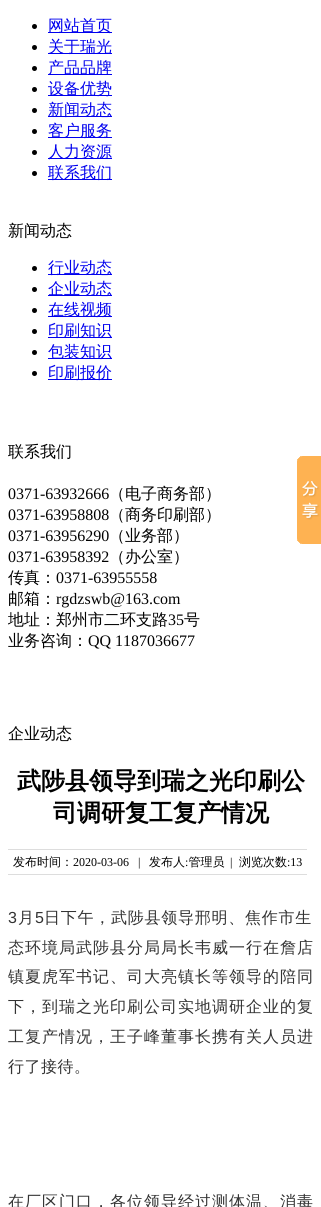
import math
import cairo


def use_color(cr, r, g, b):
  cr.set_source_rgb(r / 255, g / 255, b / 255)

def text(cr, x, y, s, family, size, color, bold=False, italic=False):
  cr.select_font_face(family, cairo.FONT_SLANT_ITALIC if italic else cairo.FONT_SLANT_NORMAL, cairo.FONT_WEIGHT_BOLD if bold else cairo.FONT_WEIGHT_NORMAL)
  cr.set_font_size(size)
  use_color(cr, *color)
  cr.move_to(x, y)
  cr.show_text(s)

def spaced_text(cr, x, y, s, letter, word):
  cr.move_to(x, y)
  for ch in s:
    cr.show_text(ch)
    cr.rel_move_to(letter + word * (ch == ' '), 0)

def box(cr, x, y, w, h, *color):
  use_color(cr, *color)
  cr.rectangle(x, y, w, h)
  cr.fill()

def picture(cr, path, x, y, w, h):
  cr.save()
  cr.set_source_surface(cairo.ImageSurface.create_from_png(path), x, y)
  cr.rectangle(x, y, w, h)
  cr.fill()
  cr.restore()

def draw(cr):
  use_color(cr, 255, 255, 255)
  cr.paint()
  use_color(cr, 0, 0, 0)
  cr.arc(34.5, 26.5, 2.5, 0, 2 * math.pi)
  cr.fill()
  box(cr, 48, 32, 64, 1, 0, 0, 238)
  use_color(cr, 0, 0, 0)
  cr.arc(34.5, 47.5, 2.5, 0, 2 * math.pi)
  cr.fill()
  box(cr, 48, 53, 64, 1, 0, 0, 238)
  use_color(cr, 0, 0, 0)
  cr.arc(34.5, 68.5, 2.5, 0, 2 * math.pi)
  cr.fill()
  box(cr, 48, 74, 64, 1, 0, 0, 238)
  use_color(cr, 0, 0, 0)
  cr.arc(34.5, 89.5, 2.5, 0, 2 * math.pi)
  cr.fill()
  box(cr, 48, 95, 64, 1, 0, 0, 238)
  use_color(cr, 0, 0, 0)
  cr.arc(34.5, 110.5, 2.5, 0, 2 * math.pi)
  cr.fill()
  box(cr, 48, 116, 64, 1, 0, 0, 238)
  use_color(cr, 0, 0, 0)
  cr.arc(34.5, 131.5, 2.5, 0, 2 * math.pi)
  cr.fill()
  box(cr, 48, 137, 64, 1, 0, 0, 238)
  use_color(cr, 0, 0, 0)
  cr.arc(34.5, 152.5, 2.5, 0, 2 * math.pi)
  cr.fill()
  box(cr, 48, 158, 64, 1, 0, 0, 238)
  use_color(cr, 0, 0, 0)
  cr.arc(34.5, 173.5, 2.5, 0, 2 * math.pi)
  cr.fill()
  box(cr, 48, 179, 64, 1, 0, 0, 238)
  use_color(cr, 0, 0, 0)
  cr.arc(34.5, 268.5, 2.5, 0, 2 * math.pi)
  cr.fill()
  box(cr, 48, 274, 64, 1, 0, 0, 238)
  use_color(cr, 0, 0, 0)
  cr.arc(34.5, 289.5, 2.5, 0, 2 * math.pi)
  cr.fill()
  box(cr, 48, 295, 64, 1, 0, 0, 238)
  use_color(cr, 0, 0, 0)
  cr.arc(34.5, 310.5, 2.5, 0, 2 * math.pi)
  cr.fill()
  box(cr, 48, 316, 64, 1, 0, 0, 238)
  use_color(cr, 0, 0, 0)
  cr.arc(34.5, 331.5, 2.5, 0, 2 * math.pi)
  cr.fill()
  box(cr, 48, 337, 64, 1, 0, 0, 238)
  use_color(cr, 0, 0, 0)
  cr.arc(34.5, 352.5, 2.5, 0, 2 * math.pi)
  cr.fill()
  box(cr, 48, 358, 64, 1, 0, 0, 238)
  use_color(cr, 0, 0, 0)
  cr.arc(34.5, 373.5, 2.5, 0, 2 * math.pi)
  cr.fill()
  box(cr, 48, 379, 64, 1, 0, 0, 238)
  box(cr, 8, 849, 299, 1, 221, 221, 221)
  box(cr, 8, 874, 299, 1, 221, 221, 221)
  picture(cr, "img_01.png", 297, 456, 24, 88)
  text(cr, 48, 31, "网站首页", "WenQuanYi Zen Hei Medium", 16, (0, 0, 238))
  text(cr, 48, 52, "关于瑞光", "WenQuanYi Zen Hei Medium", 16, (0, 0, 238))
  text(cr, 48, 73, "产品品牌", "WenQuanYi Zen Hei Medium", 16, (0, 0, 238))
  text(cr, 48, 94, "设备优势", "WenQuanYi Zen Hei Medium", 16, (0, 0, 238))
  text(cr, 48, 115, "新闻动态", "WenQuanYi Zen Hei Medium", 16, (0, 0, 238))
  text(cr, 48, 136, "客户服务", "WenQuanYi Zen Hei Medium", 16, (0, 0, 238))
  text(cr, 48, 157, "人力资源", "WenQuanYi Zen Hei Medium", 16, (0, 0, 238))
  text(cr, 48, 178, "联系我们", "WenQuanYi Zen Hei Medium", 16, (0, 0, 238))
  text(cr, 8, 236, "新闻动态", "WenQuanYi Zen Hei Medium", 16, (0, 0, 0))
  text(cr, 48, 273, "行业动态", "WenQuanYi Zen Hei Medium", 16, (0, 0, 238))
  text(cr, 48, 294, "企业动态", "WenQuanYi Zen Hei Medium", 16, (0, 0, 238))
  text(cr, 48, 315, "在线视频", "WenQuanYi Zen Hei Medium", 16, (0, 0, 238))
  text(cr, 48, 336, "印刷知识", "WenQuanYi Zen Hei Medium", 16, (0, 0, 238))
  text(cr, 48, 357, "包装知识", "WenQuanYi Zen Hei Medium", 16, (0, 0, 238))
  text(cr, 48, 378, "印刷报价", "WenQuanYi Zen Hei Medium", 16, (0, 0, 238))
  text(cr, 8, 457, "联系我们", "WenQuanYi Zen Hei Medium", 16, (0, 0, 0))
  text(cr, 8, 499, "0371-63932666", "Liberation Serif", 16, (0, 0, 0))
  text(cr, 109, 499, "（电子商务部）", "WenQuanYi Zen Hei Medium", 16, (0, 0, 0))
  text(cr, 8, 520, "0371-63958808", "Liberation Serif", 16, (0, 0, 0))
  text(cr, 109, 520, "（商务印刷部）", "WenQuanYi Zen Hei Medium", 16, (0, 0, 0))
  text(cr, 8, 541, "0371-63956290", "Liberation Serif", 16, (0, 0, 0))
  text(cr, 109, 541, "（业务部）", "WenQuanYi Zen Hei Medium", 16, (0, 0, 0))
  text(cr, 8, 562, "0371-63958392", "Liberation Serif", 16, (0, 0, 0))
  text(cr, 109, 562, "（办公室）", "WenQuanYi Zen Hei Medium", 16, (0, 0, 0))
  text(cr, 8, 583, "传真：", "WenQuanYi Zen Hei Medium", 16, (0, 0, 0))
  text(cr, 56, 583, "0371-63955558", "Liberation Serif", 16, (0, 0, 0))
  text(cr, 8, 604, "邮箱：", "WenQuanYi Zen Hei Medium", 16, (0, 0, 0))
  text(cr, 56, 604, "rgdzswb@163.com", "Liberation Serif", 16, (0, 0, 0))
  text(cr, 8, 625, "地址：郑州市二环支路", "WenQuanYi Zen Hei Medium", 16, (0, 0, 0))
  text(cr, 168, 625, "35", "Liberation Serif", 16, (0, 0, 0))
  text(cr, 184, 625, "号", "WenQuanYi Zen Hei Medium", 16, (0, 0, 0))
  text(cr, 8, 646, "业务咨询：", "WenQuanYi Zen Hei Medium", 16, (0, 0, 0))
  text(cr, 88, 646, "QQ 1187036677", "Liberation Serif", 16, (0, 0, 0))
  text(cr, 8, 739, "企业动态", "WenQuanYi Zen Hei Medium", 16, (0, 0, 0))
  text(cr, 17, 789, "武陟县领导到瑞之光印刷公", "WenQuanYi Zen Hei", 24, (0, 0, 0), bold=True)
  text(cr, 53, 821, "司调研复工复产情况", "WenQuanYi Zen Hei", 24, (0, 0, 0), bold=True)
  text(cr, 13, 866, "发布时间：", "WenQuanYi Zen Hei Medium", 12, (0, 0, 0))
  text(cr, 73, 866, "2020-03-06   |", "Liberation Serif", 12, (0, 0, 0))
  text(cr, 149, 866, "发布人 管理员", "WenQuanYi Zen Hei Medium", 12, (0, 0, 0))
  text(cr, 230, 866, "|", "Liberation Serif", 12, (0, 0, 0))
  text(cr, 239, 866, "浏览次数", "WenQuanYi Zen Hei Medium", 12, (0, 0, 0))
  text(cr, 287, 866, ":13", "Liberation Serif", 12, (0, 0, 0))
  text(cr, 185, 866, ":", "Liberation Serif", 12, (0, 0, 0))
  cr.select_font_face("Liberation Sans")
  cr.set_font_size(16)
  use_color(cr, 51, 51, 51)
  spaced_text(cr, 8, 923, "3", 0.75, 0)
  cr.select_font_face("WenQuanYi Zen Hei Medium")
  spaced_text(cr, 18, 923, "月", 0.75, 0)
  cr.select_font_face("Liberation Sans")
  spaced_text(cr, 35, 923, "5", 0.75, 0)
  cr.select_font_face("WenQuanYi Zen Hei Medium")
  spaced_text(cr, 44, 923, "日下午，武陟县领导邢明、焦作市生", 0.75, 0)
  spaced_text(cr, 8, 953, "态环境局武陟县分局局长韦威一行在詹店", 1, 0)
  spaced_text(cr, 8, 982, "镇夏虎军书记、司大亮镇长等领导的陪同", 1, 0)
  spaced_text(cr, 8, 1012, "下，到瑞之光印刷公司实地调研企业的复", 1, 0)
  spaced_text(cr, 8, 1042, "工复产情况，王子峰董事长携有关人员进", 1, 0)
  spaced_text(cr, 8, 1072, "行了接待。", 0.5, 0)
  spaced_text(cr, 8, 1207, "在厂区门口，各位领导经过测体温、消毒", 1, 0)


surface = cairo.ImageSurface(cairo.FORMAT_RGB24, 321, 1207)
cr = cairo.Context(surface)
options = cairo.FontOptions()
options.set_hint_metrics(cairo.HINT_METRICS_OFF)
options.set_hint_style(cairo.HINT_STYLE_NONE)
cr.set_font_options(options)
cr.set_miter_limit(4)
draw(cr)
surface.write_to_png("out.png")
